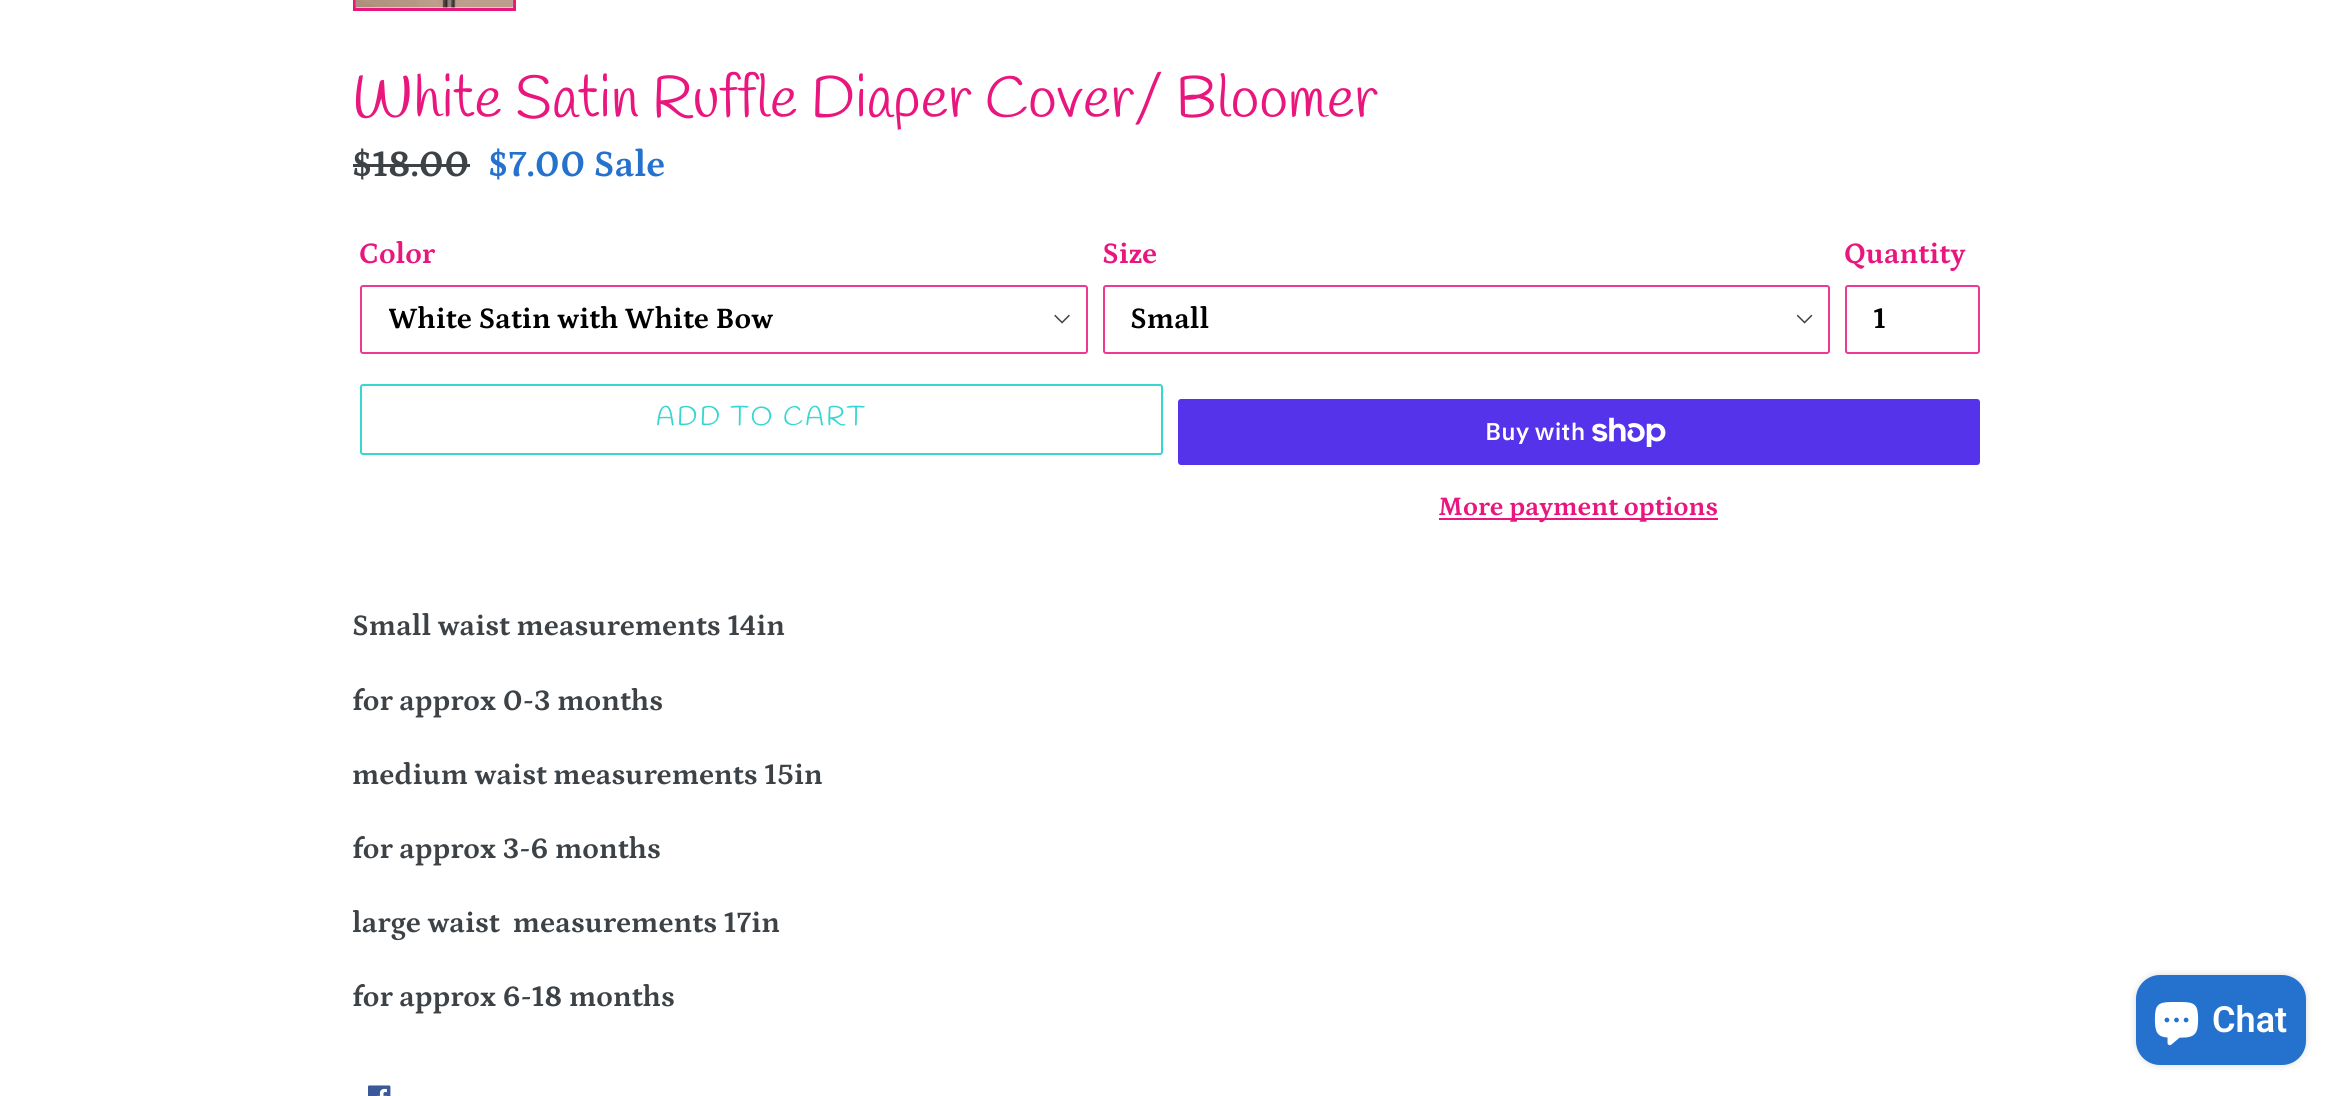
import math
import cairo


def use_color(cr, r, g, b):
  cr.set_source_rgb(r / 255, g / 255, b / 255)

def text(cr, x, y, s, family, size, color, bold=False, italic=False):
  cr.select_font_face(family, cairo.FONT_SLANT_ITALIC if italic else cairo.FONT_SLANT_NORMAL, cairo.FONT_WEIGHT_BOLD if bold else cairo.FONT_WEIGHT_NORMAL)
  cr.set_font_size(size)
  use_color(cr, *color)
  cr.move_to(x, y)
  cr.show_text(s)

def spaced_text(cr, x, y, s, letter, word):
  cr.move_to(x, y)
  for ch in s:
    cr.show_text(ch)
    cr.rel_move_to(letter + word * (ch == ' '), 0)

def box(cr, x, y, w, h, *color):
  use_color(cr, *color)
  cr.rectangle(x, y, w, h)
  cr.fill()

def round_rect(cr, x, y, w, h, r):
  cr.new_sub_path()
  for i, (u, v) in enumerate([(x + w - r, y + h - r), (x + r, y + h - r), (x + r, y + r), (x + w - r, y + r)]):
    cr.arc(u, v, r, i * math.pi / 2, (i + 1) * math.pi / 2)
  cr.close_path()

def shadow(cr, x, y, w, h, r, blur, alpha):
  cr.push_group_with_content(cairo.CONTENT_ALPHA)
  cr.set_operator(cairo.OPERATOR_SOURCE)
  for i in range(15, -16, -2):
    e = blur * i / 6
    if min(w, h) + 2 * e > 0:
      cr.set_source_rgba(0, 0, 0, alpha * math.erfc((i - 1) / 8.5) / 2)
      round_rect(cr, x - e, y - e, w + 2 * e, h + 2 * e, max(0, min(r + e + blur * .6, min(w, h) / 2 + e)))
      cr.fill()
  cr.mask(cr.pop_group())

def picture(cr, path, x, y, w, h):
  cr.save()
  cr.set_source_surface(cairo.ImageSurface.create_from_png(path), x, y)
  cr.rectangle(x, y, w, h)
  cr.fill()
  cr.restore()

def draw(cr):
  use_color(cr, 255, 255, 255)
  cr.paint()
  cr.rectangle(354.5, -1.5, 160, 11)
  use_color(cr, 233, 22, 126)
  cr.set_line_width(3)
  cr.stroke()
  picture(cr, "img_01.png", 355, 0, 159, 8)
  box(cr, 353, 164, 117, 3, 61, 66, 70)
  picture(cr, "img_02.png", 1054, 314, 16, 10)
  round_rect(cr, 361, 286, 726, 67, 2)
  use_color(cr, 236, 57, 145)
  cr.set_line_width(2)
  cr.stroke()
  picture(cr, "img_03.png", 1796, 314, 17, 10)
  round_rect(cr, 1104, 286, 725, 67, 2)
  cr.stroke()
  round_rect(cr, 1846, 286, 133, 67, 2)
  cr.stroke()
  round_rect(cr, 361, 385, 801, 69, 2)
  use_color(cr, 56, 214, 209)
  cr.stroke()
  use_color(cr, 84, 51, 235)
  round_rect(cr, 1178, 399, 802, 66, 3)
  cr.fill()
  picture(cr, "img_04.png", 1592, 417, 74, 30)
  box(cr, 1439, 518, 279, 2, 233, 22, 126)
  picture(cr, "img_05.png", 368, 1085, 23, 11)
  use_color(cr, 0, 0, 0)
  shadow(cr, 2136, 975, 170, 90, 24, 4, 0.15)
  use_color(cr, 37, 114, 206)
  round_rect(cr, 2136, 975, 170, 90, 24)
  cr.fill()
  picture(cr, "img_06.png", 2154, 1002, 45, 44)
  text(cr, 352, 117, "White Satin Ruffle Diaper Cover/ Bloomer", "Handlee", 58.5, (233, 22, 126))
  text(cr, 352, 176, "$18.00", "Petrona", 37.5, (61, 66, 70), bold=True)
  text(cr, 488, 176, "$7.00 Sale", "Petrona", 37.5, (37, 114, 206), bold=True)
  text(cr, 359, 263, "Color", "Petrona", 30, (233, 22, 126), bold=True)
  cr.save()
  cr.rectangle(389, 302, 655, 36)
  cr.clip()
  text(cr, 388, 328, "White Satin with White Bow", "Petrona", 30, (0, 0, 0), bold=True)
  cr.restore()
  text(cr, 1102, 263, "Size", "Petrona", 30, (233, 22, 126), bold=True)
  text(cr, 1130, 328, "Small", "Petrona", 30, (0, 0, 0), bold=True)
  text(cr, 1844, 263, "Quantity", "Petrona", 30, (233, 22, 126), bold=True)
  text(cr, 1873, 328, "1", "Petrona", 30, (0, 0, 0), bold=True)
  cr.select_font_face("Handlee")
  cr.set_font_size(27)
  use_color(cr, 56, 214, 209)
  spaced_text(cr, 656, 425, "ADD TO CART", 2.25, 0)
  text(cr, 1485, 440, "Buy with", "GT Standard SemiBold", 24, (255, 255, 255))
  text(cr, 1438, 515, "More payment options", "Petrona", 27, (233, 22, 126), bold=True)
  text(cr, 352, 635, "Small waist measurements 14in", "Petrona", 30, (61, 66, 70), bold=True)
  text(cr, 352, 710, "for approx 0-3 months", "Petrona", 30, (61, 66, 70), bold=True)
  text(cr, 352, 784, "medium waist measurements 15in", "Petrona", 30, (61, 66, 70), bold=True)
  text(cr, 352, 858, "for approx 3-6 months", "Petrona", 30, (61, 66, 70), bold=True)
  text(cr, 352, 932, "large waist  measurements 17in", "Petrona", 30, (61, 66, 70), bold=True)
  text(cr, 352, 1006, "for approx 6-18 months", "Petrona", 30, (61, 66, 70), bold=True)
  text(cr, 2212, 1032, "Chat", "Roboto SemiBold", 36, (255, 255, 255))


surface = cairo.ImageSurface(cairo.FORMAT_RGB24, 2338, 1096)
cr = cairo.Context(surface)
options = cairo.FontOptions()
options.set_hint_metrics(cairo.HINT_METRICS_OFF)
options.set_hint_style(cairo.HINT_STYLE_NONE)
cr.set_font_options(options)
cr.set_miter_limit(4)
draw(cr)
surface.write_to_png("out.png")
